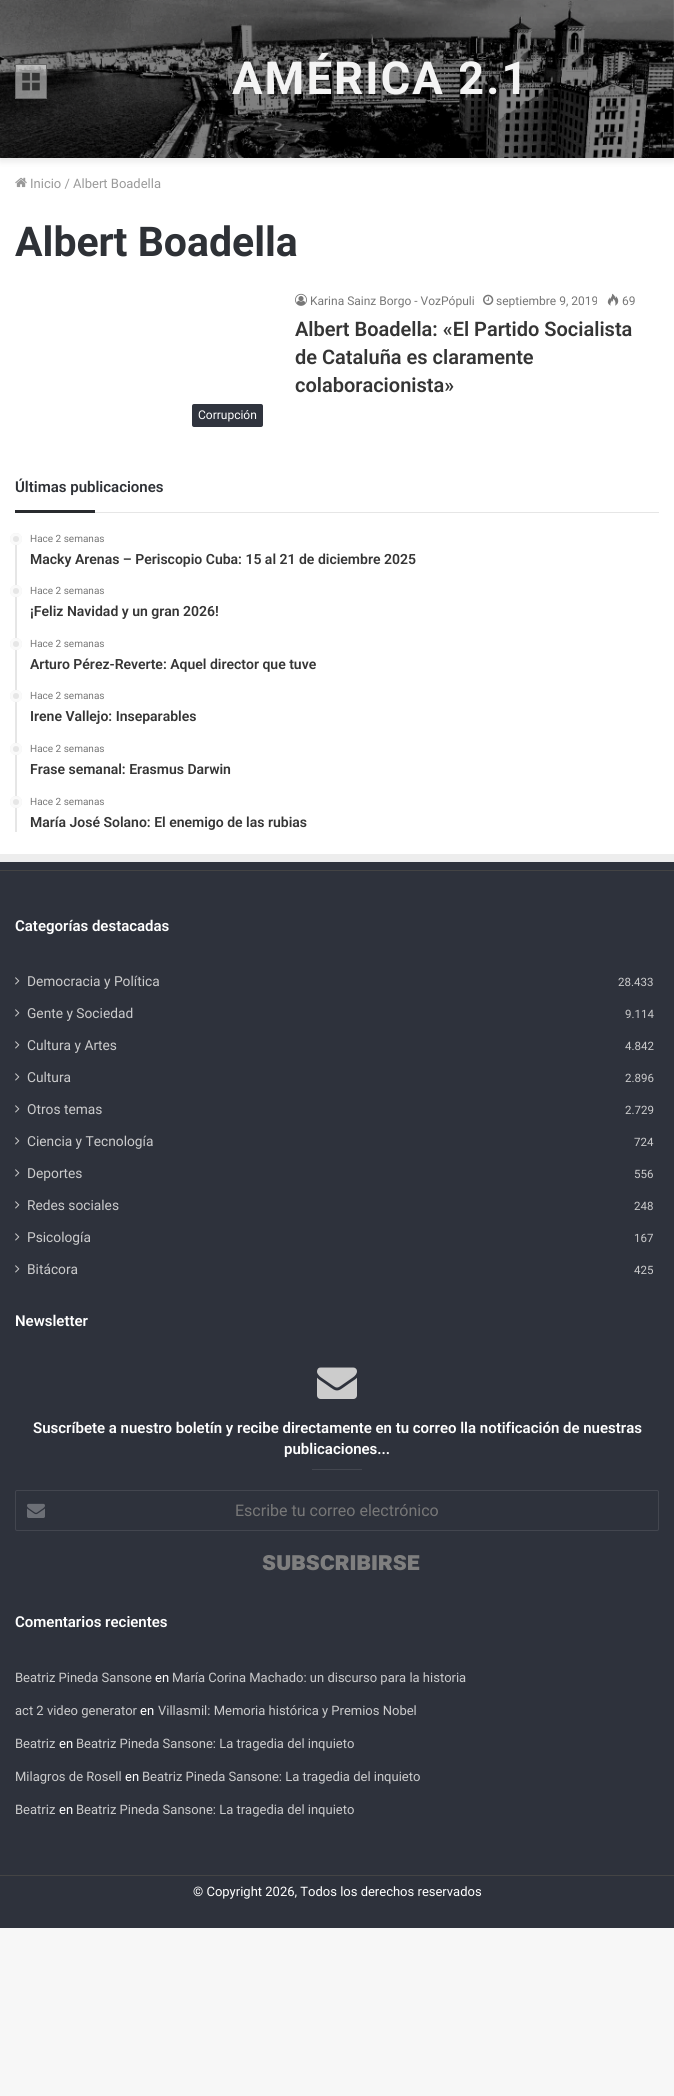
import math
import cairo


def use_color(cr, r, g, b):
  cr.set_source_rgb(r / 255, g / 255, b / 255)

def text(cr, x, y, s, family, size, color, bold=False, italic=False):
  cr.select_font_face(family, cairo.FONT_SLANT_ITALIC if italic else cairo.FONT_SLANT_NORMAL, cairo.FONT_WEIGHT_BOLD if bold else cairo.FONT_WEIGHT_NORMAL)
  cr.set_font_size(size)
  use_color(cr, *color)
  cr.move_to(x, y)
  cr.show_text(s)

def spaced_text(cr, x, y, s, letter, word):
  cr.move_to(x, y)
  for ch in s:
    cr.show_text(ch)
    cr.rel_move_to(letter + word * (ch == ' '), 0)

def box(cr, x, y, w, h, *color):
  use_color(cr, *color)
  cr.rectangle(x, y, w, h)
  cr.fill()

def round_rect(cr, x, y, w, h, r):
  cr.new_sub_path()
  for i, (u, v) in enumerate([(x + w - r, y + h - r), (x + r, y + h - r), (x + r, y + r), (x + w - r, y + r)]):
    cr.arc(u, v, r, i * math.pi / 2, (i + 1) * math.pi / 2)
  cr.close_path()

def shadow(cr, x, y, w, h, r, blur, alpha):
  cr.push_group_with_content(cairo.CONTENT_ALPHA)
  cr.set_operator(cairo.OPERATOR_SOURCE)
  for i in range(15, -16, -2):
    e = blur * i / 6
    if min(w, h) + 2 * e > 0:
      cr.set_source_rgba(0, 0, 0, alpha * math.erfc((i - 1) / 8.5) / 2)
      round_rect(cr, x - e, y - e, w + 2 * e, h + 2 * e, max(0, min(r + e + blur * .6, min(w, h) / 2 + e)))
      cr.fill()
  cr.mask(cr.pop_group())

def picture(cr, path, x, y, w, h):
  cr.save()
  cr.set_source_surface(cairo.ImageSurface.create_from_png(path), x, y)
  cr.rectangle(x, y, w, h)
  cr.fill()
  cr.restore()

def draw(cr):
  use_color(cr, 247, 247, 247)
  cr.paint()
  box(cr, 0, 0, 674, 854, 255, 255, 255)
  use_color(cr, 0, 0, 0)
  shadow(cr, 0, 3, 674, 158, 0, 3.5, 0.1)
  picture(cr, "img_01.png", 0, 0, 674, 158)
  cr.set_source_rgba(1, 1, 1, 0.5)
  cr.rectangle(15.5, 64.5, 31, 34)
  cr.fill_preserve()
  use_color(cr, 102, 102, 102)
  cr.set_line_width(1)
  cr.stroke()
  picture(cr, "img_02.png", 22, 72, 18, 19)
  picture(cr, "img_03.png", 15, 177, 12, 11)
  picture(cr, "img_04.png", 295, 293, 12, 13)
  picture(cr, "img_05.png", 483, 294, 11, 11)
  picture(cr, "img_06.png", 607, 293, 12, 13)
  use_color(cr, 48, 52, 62)
  round_rect(cr, 192, 404, 71, 23, 2)
  cr.fill()
  box(cr, 95, 512, 564, 1, 230, 230, 230)
  box(cr, 15, 510, 80, 3, 41, 43, 47)
  box(cr, 15, 533, 2, 299, 230, 230, 230)
  cr.arc(16, 539, 6, 0, 2 * math.pi)
  cr.fill()
  cr.arc(16, 539, 4.5, 0, 2 * math.pi)
  cr.set_source_rgba(1, 1, 1, 0.8)
  cr.set_line_width(3)
  cr.stroke()
  use_color(cr, 230, 230, 230)
  cr.arc(16, 591, 6, 0, 2 * math.pi)
  cr.fill()
  cr.arc(16, 591, 4.5, 0, 2 * math.pi)
  cr.set_source_rgba(1, 1, 1, 0.8)
  cr.stroke()
  use_color(cr, 230, 230, 230)
  cr.arc(16, 644, 6, 0, 2 * math.pi)
  cr.fill()
  cr.arc(16, 644, 4.5, 0, 2 * math.pi)
  cr.set_source_rgba(1, 1, 1, 0.8)
  cr.stroke()
  use_color(cr, 230, 230, 230)
  cr.arc(16, 696, 6, 0, 2 * math.pi)
  cr.fill()
  cr.arc(16, 696, 4.5, 0, 2 * math.pi)
  cr.set_source_rgba(1, 1, 1, 0.8)
  cr.stroke()
  use_color(cr, 230, 230, 230)
  cr.arc(16, 749, 6, 0, 2 * math.pi)
  cr.fill()
  cr.arc(16, 749, 4.5, 0, 2 * math.pi)
  cr.set_source_rgba(1, 1, 1, 0.8)
  cr.stroke()
  use_color(cr, 230, 230, 230)
  cr.arc(16, 802, 6, 0, 2 * math.pi)
  cr.fill()
  cr.arc(16, 802, 4.5, 0, 2 * math.pi)
  cr.set_source_rgba(1, 1, 1, 0.8)
  cr.stroke()
  box(cr, 0, 862, 674, 1066, 46, 50, 60)
  box(cr, 0, 854, 674, 8, 237, 237, 237)
  box(cr, 0, 870, 674, 1, 68, 68, 68)
  picture(cr, "img_07.png", 15, 977, 5, 8)
  picture(cr, "img_07.png", 15, 1009, 5, 8)
  picture(cr, "img_07.png", 15, 1041, 5, 8)
  picture(cr, "img_07.png", 15, 1073, 5, 8)
  picture(cr, "img_07.png", 15, 1105, 5, 8)
  picture(cr, "img_07.png", 15, 1137, 5, 8)
  picture(cr, "img_07.png", 15, 1169, 5, 8)
  picture(cr, "img_07.png", 15, 1201, 5, 8)
  picture(cr, "img_07.png", 15, 1233, 5, 8)
  picture(cr, "img_07.png", 15, 1265, 5, 8)
  picture(cr, "img_08.png", 317, 1367, 40, 32)
  box(cr, 312, 1469, 50, 1, 67, 70, 79)
  round_rect(cr, 15.5, 1490.5, 643, 40, 1.5)
  cr.set_line_width(1)
  cr.stroke()
  picture(cr, "img_09.png", 27, 1503, 18, 15)
  box(cr, 0, 1875, 674, 1, 68, 68, 68)
  cr.select_font_face("Roboto", cairo.FONT_SLANT_NORMAL, cairo.FONT_WEIGHT_BOLD)
  cr.set_font_size(45.5)
  use_color(cr, 244, 244, 244)
  spaced_text(cr, 232, 94, "AMÉRICA 2.1", 2, 0)
  text(cr, 30, 188, "Inicio / Albert Boadella", "Roboto", 13, (154, 154, 154))
  text(cr, 15, 256, "Albert Boadella", "Roboto", 41, (46, 49, 54), bold=True)
  text(cr, 310, 305, "Karina Sainz Borgo - VozPópuli", "Roboto", 12, (119, 119, 119))
  text(cr, 496, 305, "septiembre 9, 2019", "Roboto", 12, (119, 119, 119))
  text(cr, 622, 305, "69", "Roboto", 12, (119, 119, 119))
  text(cr, 295, 336, "Albert Boadella: «El Partido Socialista", "Roboto SemiBold", 20, (53, 53, 53))
  text(cr, 295, 364, "de Cataluña es claramente", "Roboto SemiBold", 20, (53, 53, 53))
  text(cr, 295, 392, "colaboracionista»", "Roboto SemiBold", 20, (53, 53, 53))
  text(cr, 198, 419, "Corrupción", "Roboto", 12, (255, 255, 255))
  text(cr, 15, 492, "Últimas publicaciones", "Roboto SemiBold", 15, (46, 49, 54))
  text(cr, 30, 542, "Hace 2 semanas", "Roboto", 10, (119, 119, 119))
  text(cr, 30, 564, "Macky Arenas – Periscopio Cuba: 15 al 21 de diciembre 2025", "Roboto SemiBold", 14, (53, 53, 53))
  text(cr, 30, 594, "Hace 2 semanas", "Roboto", 10, (119, 119, 119))
  text(cr, 30, 616, "¡Feliz Navidad y un gran 2026!", "Roboto SemiBold", 14, (53, 53, 53))
  text(cr, 30, 647, "Hace 2 semanas", "Roboto", 10, (119, 119, 119))
  text(cr, 30, 669, "Arturo Pérez-Reverte: Aquel director que tuve", "Roboto SemiBold", 14, (53, 53, 53))
  text(cr, 30, 699, "Hace 2 semanas", "Roboto", 10, (119, 119, 119))
  text(cr, 30, 721, "Irene Vallejo: Inseparables", "Roboto SemiBold", 14, (53, 53, 53))
  text(cr, 30, 752, "Hace 2 semanas", "Roboto", 10, (119, 119, 119))
  text(cr, 30, 774, "Frase semanal: Erasmus Darwin", "Roboto SemiBold", 14, (53, 53, 53))
  text(cr, 30, 805, "Hace 2 semanas", "Roboto", 10, (119, 119, 119))
  text(cr, 30, 827, "María José Solano: El enemigo de las rubias", "Roboto SemiBold", 14, (53, 53, 53))
  text(cr, 15, 931, "Categorías destacadas", "Roboto SemiBold", 15, (255, 255, 255))
  text(cr, 27, 986, "Democracia y Política", "Roboto", 13.75, (203, 203, 204))
  text(cr, 618, 986, "28.433", "Roboto", 11.5, (203, 203, 204))
  text(cr, 27, 1018, "Gente y Sociedad", "Roboto", 13.75, (203, 203, 204))
  text(cr, 625, 1018, "9.114", "Roboto", 11.5, (203, 203, 204))
  text(cr, 27, 1050, "Cultura y Artes", "Roboto", 13.75, (203, 203, 204))
  text(cr, 625, 1050, "4.842", "Roboto", 11.5, (203, 203, 204))
  text(cr, 27, 1082, "Cultura", "Roboto", 13.75, (203, 203, 204))
  text(cr, 625, 1082, "2.896", "Roboto", 11.5, (203, 203, 204))
  text(cr, 27, 1114, "Otros temas", "Roboto", 13.75, (203, 203, 204))
  text(cr, 625, 1114, "2.729", "Roboto", 11.5, (203, 203, 204))
  text(cr, 27, 1146, "Ciencia y Tecnología", "Roboto", 13.75, (203, 203, 204))
  text(cr, 634, 1146, "724", "Roboto", 11.5, (203, 203, 204))
  text(cr, 27, 1178, "Deportes", "Roboto", 13.75, (203, 203, 204))
  text(cr, 634, 1178, "556", "Roboto", 11.5, (203, 203, 204))
  text(cr, 27, 1210, "Redes sociales", "Roboto", 13.75, (203, 203, 204))
  text(cr, 634, 1210, "248", "Roboto", 11.5, (203, 203, 204))
  text(cr, 27, 1242, "Psicología", "Roboto", 13.75, (203, 203, 204))
  text(cr, 634, 1242, "167", "Roboto", 11.5, (203, 203, 204))
  text(cr, 27, 1274, "Bitácora", "Roboto", 13.75, (203, 203, 204))
  text(cr, 634, 1274, "425", "Roboto", 11.5, (203, 203, 204))
  text(cr, 15, 1326, "Newsletter", "Roboto SemiBold", 15, (255, 255, 255))
  text(cr, 33, 1433, "Suscríbete a nuestro boletín y recibe directamente en tu correo lla notificación de nuestras", "Roboto SemiBold", 15, (255, 255, 255))
  text(cr, 284, 1454, "publicaciones...", "Roboto SemiBold", 15, (255, 255, 255))
  text(cr, 235, 1516, "Escribe tu correo electrónico", "Roboto", 16, (119, 119, 119))
  text(cr, 262, 1570, "Subscribirse", "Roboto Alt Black", 26, (127, 127, 127))
  text(cr, 15, 1627, "Comentarios recientes", "Roboto SemiBold", 15, (255, 255, 255))
  text(cr, 15, 1682, "Beatriz Pineda Sansone", "Roboto", 13, (203, 203, 204))
  text(cr, 155, 1682, "en", "Roboto", 13, (255, 255, 255))
  text(cr, 172, 1682, "María Corina Machado: un discurso para la historia", "Roboto", 13, (203, 203, 204))
  text(cr, 15, 1715, "act 2 video generator", "Roboto", 13, (203, 203, 204))
  text(cr, 140, 1715, "en", "Roboto", 13, (255, 255, 255))
  text(cr, 158, 1715, "Villasmil: Memoria histórica y Premios Nobel", "Roboto", 13, (203, 203, 204))
  text(cr, 15, 1748, "Beatriz", "Roboto", 13, (203, 203, 204))
  text(cr, 59, 1748, "en", "Roboto", 13, (255, 255, 255))
  text(cr, 76, 1748, "Beatriz Pineda Sansone: La tragedia del inquieto", "Roboto", 13, (203, 203, 204))
  text(cr, 15, 1781, "Milagros de Rosell", "Roboto", 13, (203, 203, 204))
  text(cr, 125, 1781, "en", "Roboto", 13, (255, 255, 255))
  text(cr, 142, 1781, "Beatriz Pineda Sansone: La tragedia del inquieto", "Roboto", 13, (203, 203, 204))
  text(cr, 15, 1814, "Beatriz", "Roboto", 13, (203, 203, 204))
  text(cr, 59, 1814, "en", "Roboto", 13, (255, 255, 255))
  text(cr, 76, 1814, "Beatriz Pineda Sansone: La tragedia del inquieto", "Roboto", 13, (203, 203, 204))
  text(cr, 193, 1896, "© Copyright 2026, Todos los derechos reservados", "Roboto", 13, (255, 255, 255))


surface = cairo.ImageSurface(cairo.FORMAT_RGB24, 674, 2096)
cr = cairo.Context(surface)
options = cairo.FontOptions()
options.set_hint_metrics(cairo.HINT_METRICS_OFF)
options.set_hint_style(cairo.HINT_STYLE_NONE)
cr.set_font_options(options)
cr.set_miter_limit(4)
draw(cr)
surface.write_to_png("out.png")
